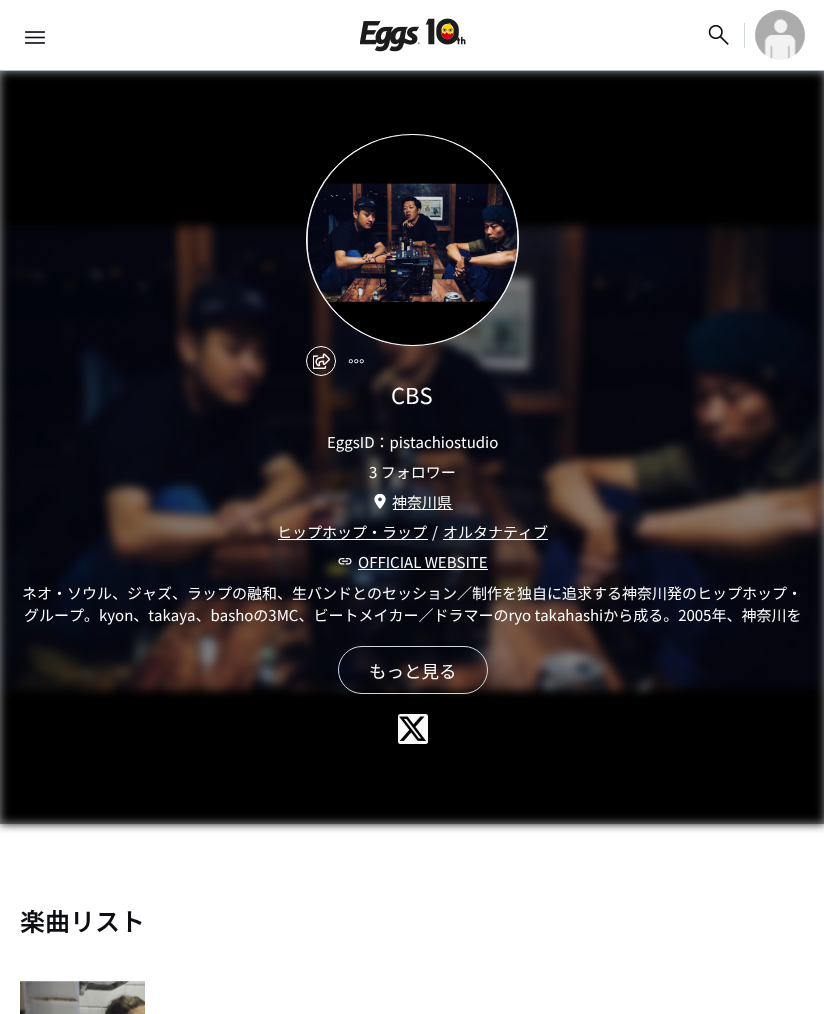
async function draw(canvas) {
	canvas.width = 824;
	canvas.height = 1014;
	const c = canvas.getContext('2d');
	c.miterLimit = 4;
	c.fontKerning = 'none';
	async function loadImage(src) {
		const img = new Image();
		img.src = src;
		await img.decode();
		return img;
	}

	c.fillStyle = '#fff';
	c.fillRect(0, 0, 824, 1014);
	c.fillStyle = '#afb8c1';
	c.fillRect(0, 70, 824, 1);
	c.drawImage(await loadImage('img1.png'), 25, 31, 20, 13);
	c.drawImage(await loadImage('img2.png'), 360, 18, 106, 34);
	c.drawImage(await loadImage('img3.png'), 708, 25, 21, 20);
	c.fillStyle = '#d0d7de';
	c.fillRect(744, 23, 1, 25);
	c.drawImage(await loadImage('img4.png'), 755, 10, 50, 50);
	c.fillStyle = '#999';
	c.fillRect(0, 71, 824, 753);
	c.drawImage(await loadImage('img5.png'), 0, 71, 824, 762);
	c.fillStyle = '#fff';
	c.beginPath();
	c.roundRect(306.5, 134.5, 212, 211, 105.5);
	c.fill();
	c.strokeStyle = '#fff';
	c.stroke();
	c.drawImage(await loadImage('img6.png'), 307, 135, 211, 210);
	c.beginPath();
	c.arc(321, 361, 14.5, 0, 2 * Math.PI);
	c.stroke();
	c.drawImage(await loadImage('img7.png'), 313, 353, 17, 16);
	c.drawImage(await loadImage('img8.png'), 348, 359, 16, 5);
	c.font = '22px Noto Sans JP';
	c.fillText('CBS', 391, 404);
	c.font = '15px Noto Sans JP';
	c.fillText('EggsID：pistachiostudio', 327, 448);
	c.fillText('3 フォロワー', 369, 478);
	c.drawImage(await loadImage('img9.png'), 374, 494, 12, 15);
	c.fillRect(393, 509, 60, 1);
	c.fillText('神奈川県', 392, 508);
	c.fillRect(278, 539, 150, 1);
	c.fillText('ヒップホップ・ラップ', 277, 538);
	c.fillText('/', 432, 538);
	c.fillRect(443, 539, 105, 1);
	c.fillText('オルタナティブ', 443, 538);
	c.drawImage(await loadImage('img10.png'), 338, 558, 14, 7);
	c.fillText('OFFICIAL WEBSITE', 358, 568);
	c.fillRect(358, 569, 130, 1);
	c.fillText('ネオ・ソウル、ジャズ、ラップの融和、生バンドとのセッション／制作を独自に追求する神奈川発のヒップホップ・', 22, 599);
	c.fillText('グループ。kyon、takaya、bashoの3MC、ビートメイカー／ドラマーのryo takahashiから成る。2005年、神奈川を', 24, 621);
	c.beginPath();
	c.roundRect(338.5, 646.5, 149, 47, 23.5);
	c.strokeStyle = '#d0d7de';
	c.stroke();
	c.font = '17.5px Noto Sans JP';
	c.fillText('もっと見る', 369, 678);
	c.fillStyle = '#fafafa';
	c.beginPath();
	c.roundRect(398, 714, 30, 30, 2.5);
	c.fill();
	c.drawImage(await loadImage('img11.png'), 399, 716, 27, 25);
	c.font = '600 25px Noto Sans JP';
	c.fillStyle = '#0d0f14';
	c.fillText('楽曲リスト', 20, 931);
	c.drawImage(await loadImage('img12.png'), 20, 981, 125, 33);
}

draw(document.querySelector('canvas'));
